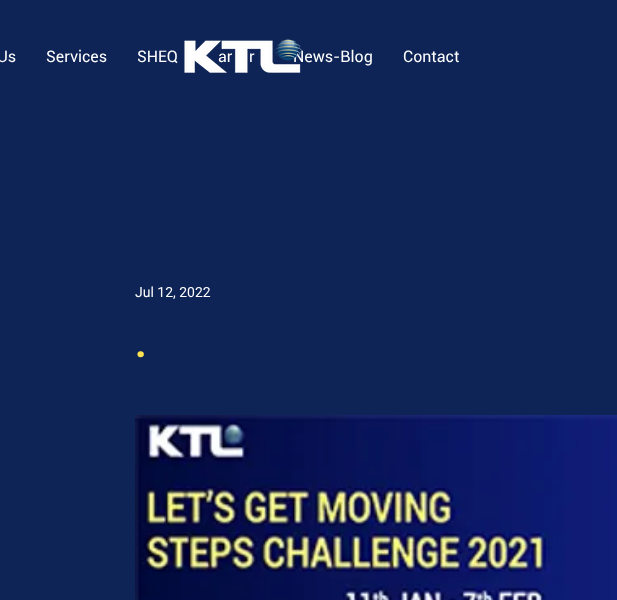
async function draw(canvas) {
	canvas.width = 617;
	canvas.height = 600;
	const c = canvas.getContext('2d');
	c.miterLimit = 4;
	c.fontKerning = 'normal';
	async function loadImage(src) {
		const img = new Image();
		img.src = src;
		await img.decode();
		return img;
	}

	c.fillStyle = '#0e2456';
	c.fillRect(0, 0, 617, 600);
	c.font = '16px "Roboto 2"';
	c.fillStyle = '#fff';
	for (const [text, x, y] of [
		['ar', 218, 62],
		['r', 249, 62],
		['News-Blog', 293, 62],
	]) {
		c.fillText(text, x, y);
	}
	c.drawImage(await loadImage('img1.png'), 184, 39, 118, 34);
	for (const [text, x, y] of [
		['Us', -3, 62],
		['Services', 46, 62],
		['SHEQ', 137, 62],
		['Contact', 403, 62],
	]) {
		c.fillText(text, x, y);
	}
	c.font = '14px Roboto';
	c.fillText('Jul 12, 2022', 135, 297);
	c.font = 'bold 40px Roboto';
	c.fillStyle = '#ffe252';
	c.fillText('.', 135, 357);
	c.drawImage(await loadImage('img2.png'), 135, 415, 482, 185);
}

draw(document.querySelector('canvas'));
